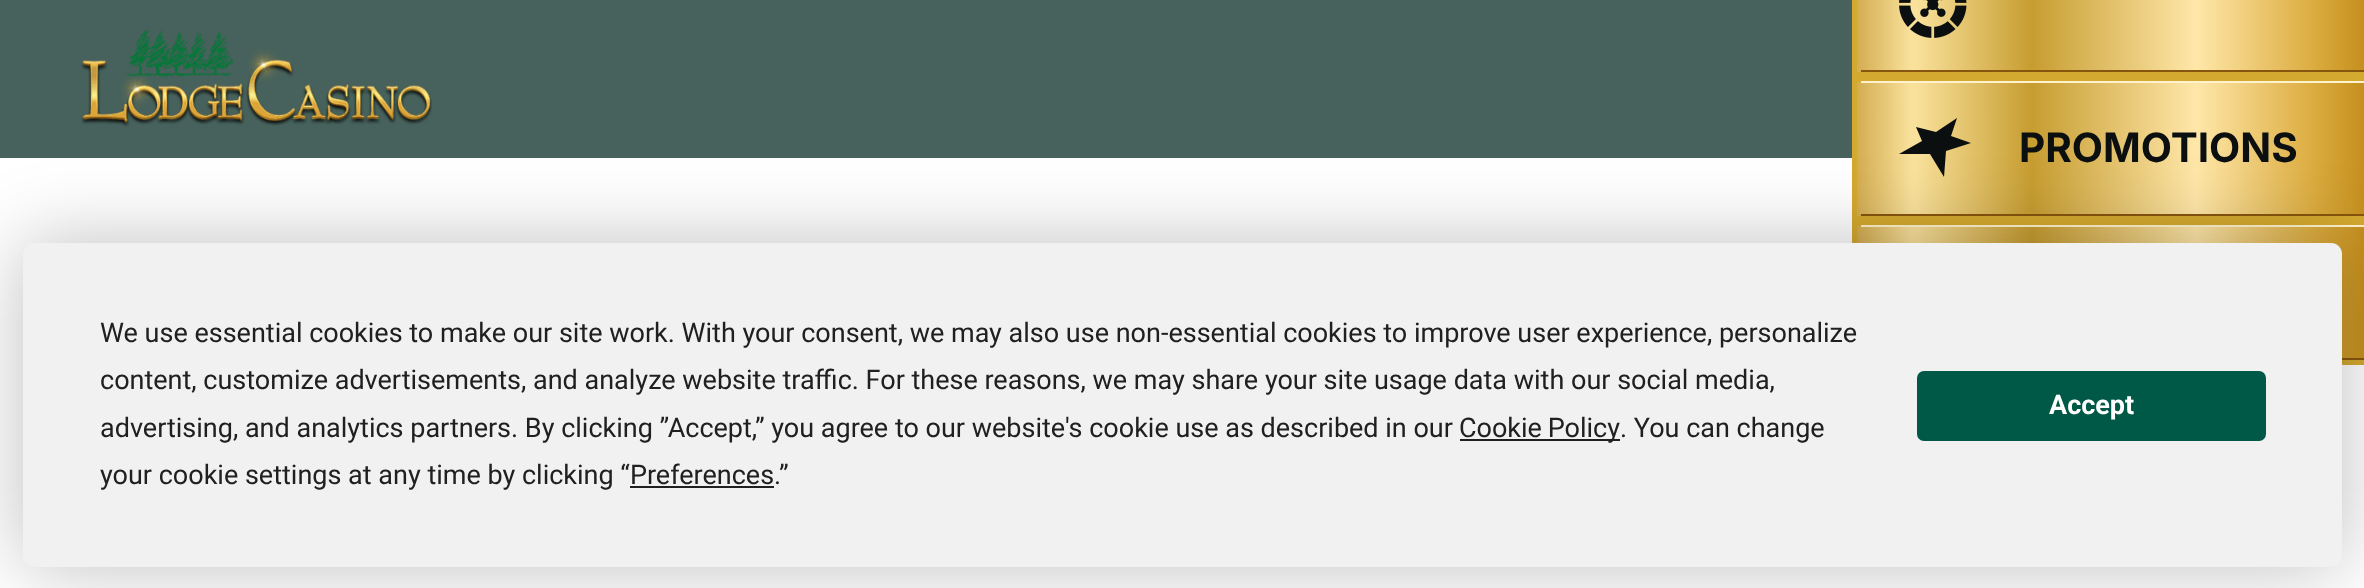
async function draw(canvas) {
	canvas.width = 2364;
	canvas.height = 588;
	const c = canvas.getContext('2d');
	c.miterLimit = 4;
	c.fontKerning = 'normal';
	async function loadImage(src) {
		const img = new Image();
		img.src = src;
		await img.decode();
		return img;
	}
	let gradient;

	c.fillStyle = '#fff';
	c.fillRect(0, 0, 2364, 588);
	c.fillStyle = '#47625c';
	c.fillRect(0, 0, 1852, 158);
	c.drawImage(await loadImage('img1.png'), 81, 29, 351, 98);
	gradient = c.createLinearGradient(1856, 4.5, 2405, 4.5);
	gradient.addColorStop(0, '#d3ac50');
	gradient.addColorStop(0.1, '#f9e19b');
	gradient.addColorStop(0.11, '#f9e19b');
	gradient.addColorStop(0.32, '#c79d31');
	gradient.addColorStop(0.62, '#ffe7a9');
	gradient.addColorStop(0.83, '#dcad41');
	gradient.addColorStop(1, '#b37802');
	c.fillStyle = gradient;
	c.fillRect(1857, 0, 507, 72);
	c.strokeStyle = '#d4a92f';
	c.lineWidth = 5;
	c.strokeRect(1854.5, -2.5, 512, 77);
	c.drawImage(await loadImage('img2.png'), 1899, 0, 68, 38);
	c.fillStyle = '#87560e';
	c.fillRect(1861, 70, 503, 2);
	gradient = c.createLinearGradient(1856, 149, 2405, 148);
	gradient.addColorStop(0, '#d3ac50');
	gradient.addColorStop(0.1, '#f9e19b');
	gradient.addColorStop(0.11, '#f9e19b');
	gradient.addColorStop(0.32, '#c79d31');
	gradient.addColorStop(0.62, '#ffe7a9');
	gradient.addColorStop(0.83, '#dcad41');
	gradient.addColorStop(1, '#b37802');
	c.fillStyle = gradient;
	c.fillRect(1857, 82, 507, 134);
	c.strokeRect(1854.5, 79.5, 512, 139);
	c.fillStyle = '#fff2cc';
	c.fillRect(1861, 81, 503, 2);
	c.fillStyle = '#0b0f10';
	c.beginPath();
	c.moveTo(1936, 132);
	c.lineTo(1916, 127);
	c.lineTo(1922, 141);
	c.lineTo(1899, 154);
	c.lineTo(1930, 154);
	c.lineTo(1944, 177);
	c.lineTo(1946, 151);
	c.lineTo(1971, 143);
	c.lineTo(1951, 136);
	c.lineTo(1957, 118);
	c.closePath();
	c.fill();
	c.font = 'bold 40.5px Inter';
	c.fillText('PROMOTIONS', 2019, 162);
	c.fillStyle = '#87560e';
	c.fillRect(1861, 214, 503, 2);
	gradient = c.createLinearGradient(1856, 293, 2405, 293);
	gradient.addColorStop(0, '#d3ac50');
	gradient.addColorStop(0.1, '#f9e19b');
	gradient.addColorStop(0.11, '#f9e19b');
	gradient.addColorStop(0.32, '#c79d31');
	gradient.addColorStop(0.62, '#ffe7a9');
	gradient.addColorStop(0.83, '#dcad41');
	gradient.addColorStop(1, '#b37802');
	c.fillStyle = gradient;
	c.fillRect(1857, 226, 507, 132);
	c.strokeRect(1854.5, 223.5, 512, 139);
	c.fillStyle = '#fff2cc';
	c.fillRect(1861, 225, 503, 2);
	c.fillStyle = '#87560e';
	c.fillRect(2342, 358, 22, 2);
	c.fillStyle = '#00000040';
	c.filter = 'blur(39.5px)';
	c.beginPath();
	c.roundRect(23, 243, 2319, 324, 11);
	c.fill();
	c.filter = 'none';
	c.fillStyle = '#f1f1f1';
	c.beginPath();
	c.roundRect(23, 243, 2319, 324, 11);
	c.fill();
	c.font = '27px Roboto';
	c.fillStyle = '#202020';
	for (const [text, x, y] of [
		['We use essential cookies to make our site work. With your consent, we may also use non-essential cookies to improve user experience, personalize', 100, 342],
		['content, customize advertisements, and analyze website traffic. For these reasons, we may share your site usage data with our social media,', 100, 389],
		['advertising, and analytics partners. By clicking ”Accept,” you agree to our website\'s cookie use as described in our', 100, 437],
	]) {
		c.fillText(text, x, y);
	}
	c.fillRect(1460, 439, 160, 2);
	c.wordSpacing = '-1px';
	c.fillText('Cookie Policy', 1459, 437);
	c.wordSpacing = '0px';
	c.fillText('. You can change', 1620, 437);
	c.fillText('your cookie settings at any time by clicking “Preferences.”', 100, 484);
	c.fillRect(630, 486, 144, 2);
	c.fillStyle = '#005847';
	c.beginPath();
	c.roundRect(1918, 372, 347, 68, 6);
	c.fill();
	c.strokeStyle = '#005847';
	c.lineWidth = 2;
	c.stroke();
	c.font = 'bold 27px Roboto';
	c.fillStyle = '#fff';
	c.fillText('Accept', 2049, 414);
}

draw(document.querySelector('canvas'));
